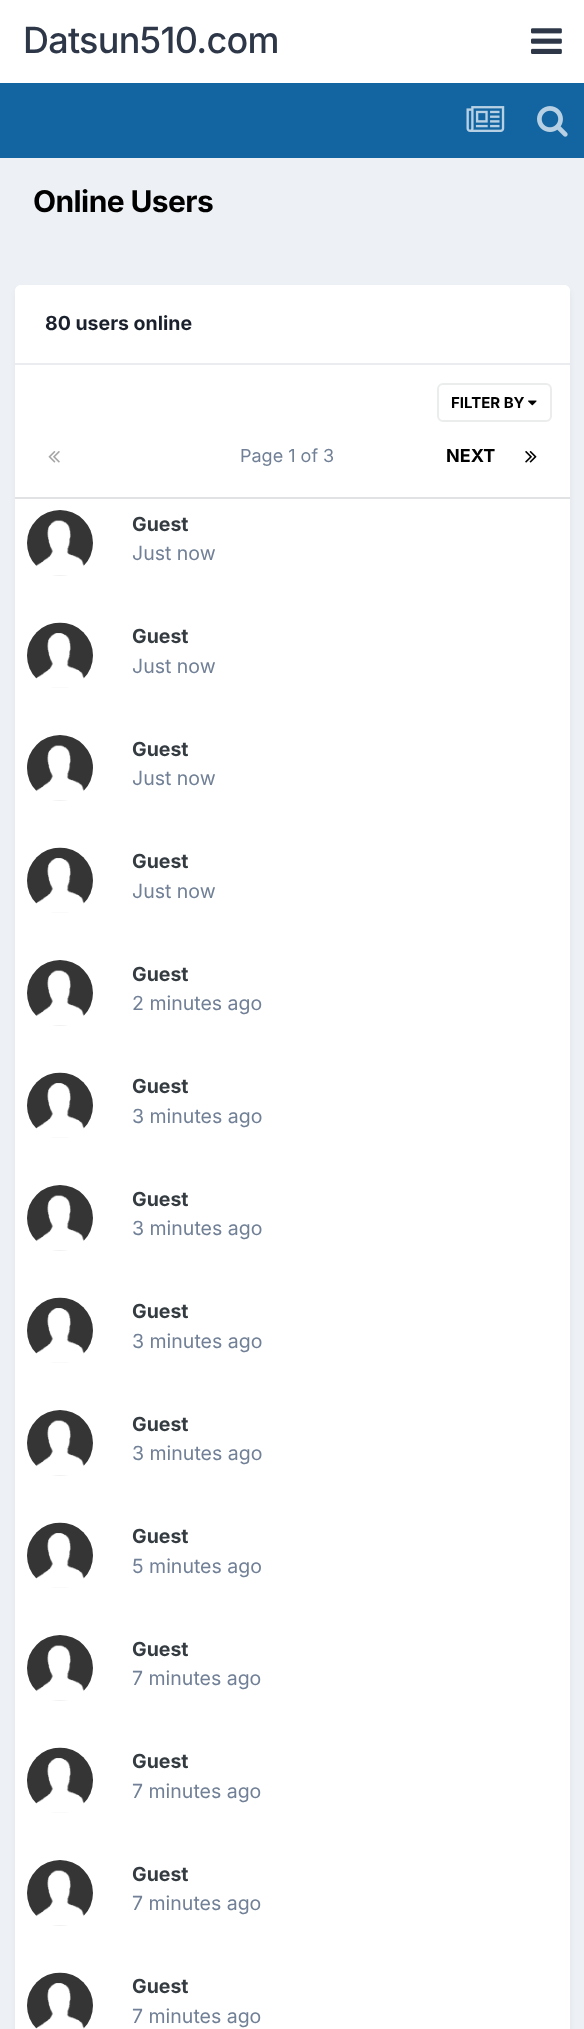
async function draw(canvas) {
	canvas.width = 584;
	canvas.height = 2029;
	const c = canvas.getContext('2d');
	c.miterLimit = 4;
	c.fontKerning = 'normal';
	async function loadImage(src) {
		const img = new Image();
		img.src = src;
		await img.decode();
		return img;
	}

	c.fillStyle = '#edf0f4';
	c.fillRect(0, 0, 584, 2029);
	c.fillStyle = '#fff';
	c.fillRect(0, 0, 584, 83);
	c.letterSpacing = '-0.75px';
	c.font = '500 36px Inter';
	c.fillStyle = '#2d3748';
	c.fillText('Datsun510.com', 23, 53);
	c.drawImage(await loadImage('img1.png'), 531, 28, 31, 26);
	c.fillStyle = '#1265a1';
	c.fillRect(0, 83, 584, 75);
	c.drawImage(await loadImage('img2.png'), 466, 106, 39, 26);
	c.drawImage(await loadImage('img3.png'), 537, 106, 31, 31);
	c.letterSpacing = '-0.6px';
	c.font = 'bold 30px Inter';
	c.fillStyle = '#000';
	c.fillText('Online Users', 33, 212);
	c.fillStyle = '#2d37481a';
	c.filter = 'blur(3px)';
	c.beginPath();
	c.roundRect(17, 290, 552, 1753, 5);
	c.fill();
	c.filter = 'none';
	c.fillStyle = '#fff';
	c.beginPath();
	c.roundRect(15, 285, 555, 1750, 6);
	c.fill();
	c.beginPath();
	c.roundRect(15, 285, 555, 80, [6, 6, 0, 0]);
	c.fill();
	c.fillStyle = '#eaecef';
	c.fillRect(15, 363, 555, 2);
	c.letterSpacing = '0px';
	c.font = 'bold 19.5px Inter';
	c.fillStyle = '#1a202c';
	c.fillText('80 users online', 45, 330);
	c.fillStyle = '#e1e2e3';
	c.fillRect(15, 497, 555, 2);
	c.drawImage(await loadImage('img4.png'), 528, 400, 9, 6);
	c.beginPath();
	c.roundRect(438, 384, 113, 37, 5);
	c.strokeStyle = '#ebecec';
	c.lineWidth = 2;
	c.stroke();
	c.font = 'bold 15px Inter';
	c.fillStyle = '#000';
	c.fillText('FILTER BY', 451, 408);
	c.drawImage(await loadImage('img5.png'), 48, 451, 12, 12);
	c.font = '18px Inter';
	c.fillStyle = '#718096';
	c.fillText('Page 1 of 3', 240, 462);
	c.font = 'bold 18px Inter';
	c.fillStyle = '#000';
	c.fillText('NEXT', 446, 462);
	c.drawImage(await loadImage('img6.png'), 525, 451, 12, 12);
	c.drawImage(await loadImage('img7.png'), 27, 510, 66, 66);
	c.font = 'bold 19.5px Inter';
	c.fillStyle = '#353c41';
	c.fillText('Guest', 132, 531);
	c.font = '19.5px Inter';
	c.fillStyle = '#718096';
	c.fillText('Just now', 132, 560);
	c.drawImage(await loadImage('img8.png'), 27, 622, 66, 66);
	c.font = 'bold 19.5px Inter';
	c.fillStyle = '#353c41';
	c.fillText('Guest', 132, 643);
	c.font = '19.5px Inter';
	c.fillStyle = '#718096';
	c.fillText('Just now', 132, 673);
	c.drawImage(await loadImage('img9.png'), 27, 735, 66, 66);
	c.font = 'bold 19.5px Inter';
	c.fillStyle = '#353c41';
	c.fillText('Guest', 132, 756);
	c.font = '19.5px Inter';
	c.fillStyle = '#718096';
	c.fillText('Just now', 132, 785);
	c.drawImage(await loadImage('img8.png'), 27, 847, 66, 66);
	c.font = 'bold 19.5px Inter';
	c.fillStyle = '#353c41';
	c.fillText('Guest', 132, 868);
	c.font = '19.5px Inter';
	c.fillStyle = '#718096';
	c.fillText('Just now', 132, 898);
	c.drawImage(await loadImage('img10.png'), 27, 960, 66, 66);
	c.font = 'bold 19.5px Inter';
	c.fillStyle = '#353c41';
	c.fillText('Guest', 132, 981);
	c.font = '19.5px Inter';
	c.fillStyle = '#718096';
	c.fillText('2 minutes ago', 132, 1010);
	c.drawImage(await loadImage('img8.png'), 27, 1072, 66, 66);
	c.font = 'bold 19.5px Inter';
	c.fillStyle = '#353c41';
	c.fillText('Guest', 132, 1093);
	c.font = '19.5px Inter';
	c.fillStyle = '#718096';
	c.fillText('3 minutes ago', 132, 1123);
	c.drawImage(await loadImage('img7.png'), 27, 1185, 66, 66);
	c.font = 'bold 19.5px Inter';
	c.fillStyle = '#353c41';
	c.fillText('Guest', 132, 1206);
	c.font = '19.5px Inter';
	c.fillStyle = '#718096';
	c.fillText('3 minutes ago', 132, 1235);
	c.drawImage(await loadImage('img8.png'), 27, 1297, 66, 66);
	c.font = 'bold 19.5px Inter';
	c.fillStyle = '#353c41';
	c.fillText('Guest', 132, 1318);
	c.font = '19.5px Inter';
	c.fillStyle = '#718096';
	c.fillText('3 minutes ago', 132, 1348);
	c.drawImage(await loadImage('img7.png'), 27, 1410, 66, 66);
	c.font = 'bold 19.5px Inter';
	c.fillStyle = '#353c41';
	c.fillText('Guest', 132, 1431);
	c.font = '19.5px Inter';
	c.fillStyle = '#718096';
	c.fillText('3 minutes ago', 132, 1460);
	c.drawImage(await loadImage('img11.png'), 27, 1522, 66, 66);
	c.font = 'bold 19.5px Inter';
	c.fillStyle = '#353c41';
	c.fillText('Guest', 132, 1543);
	c.font = '19.5px Inter';
	c.fillStyle = '#718096';
	c.fillText('5 minutes ago', 132, 1573);
	c.drawImage(await loadImage('img7.png'), 27, 1635, 66, 66);
	c.font = 'bold 19.5px Inter';
	c.fillStyle = '#353c41';
	c.fillText('Guest', 132, 1656);
	c.font = '19.5px Inter';
	c.fillStyle = '#718096';
	c.fillText('7 minutes ago', 132, 1685);
	c.drawImage(await loadImage('img12.png'), 27, 1747, 66, 66);
	c.font = 'bold 19.5px Inter';
	c.fillStyle = '#353c41';
	c.fillText('Guest', 132, 1768);
	c.font = '19.5px Inter';
	c.fillStyle = '#718096';
	c.fillText('7 minutes ago', 132, 1798);
	c.drawImage(await loadImage('img7.png'), 27, 1860, 66, 66);
	c.font = 'bold 19.5px Inter';
	c.fillStyle = '#353c41';
	c.fillText('Guest', 132, 1881);
	c.font = '19.5px Inter';
	c.fillStyle = '#718096';
	c.fillText('7 minutes ago', 132, 1910);
	c.drawImage(await loadImage('img13.png'), 27, 1972, 66, 57);
	c.font = 'bold 19.5px Inter';
	c.fillStyle = '#353c41';
	c.fillText('Guest', 132, 1993);
	c.font = '19.5px Inter';
	c.fillStyle = '#718096';
	c.fillText('7 minutes ago', 132, 2023);
}

draw(document.querySelector('canvas'));
